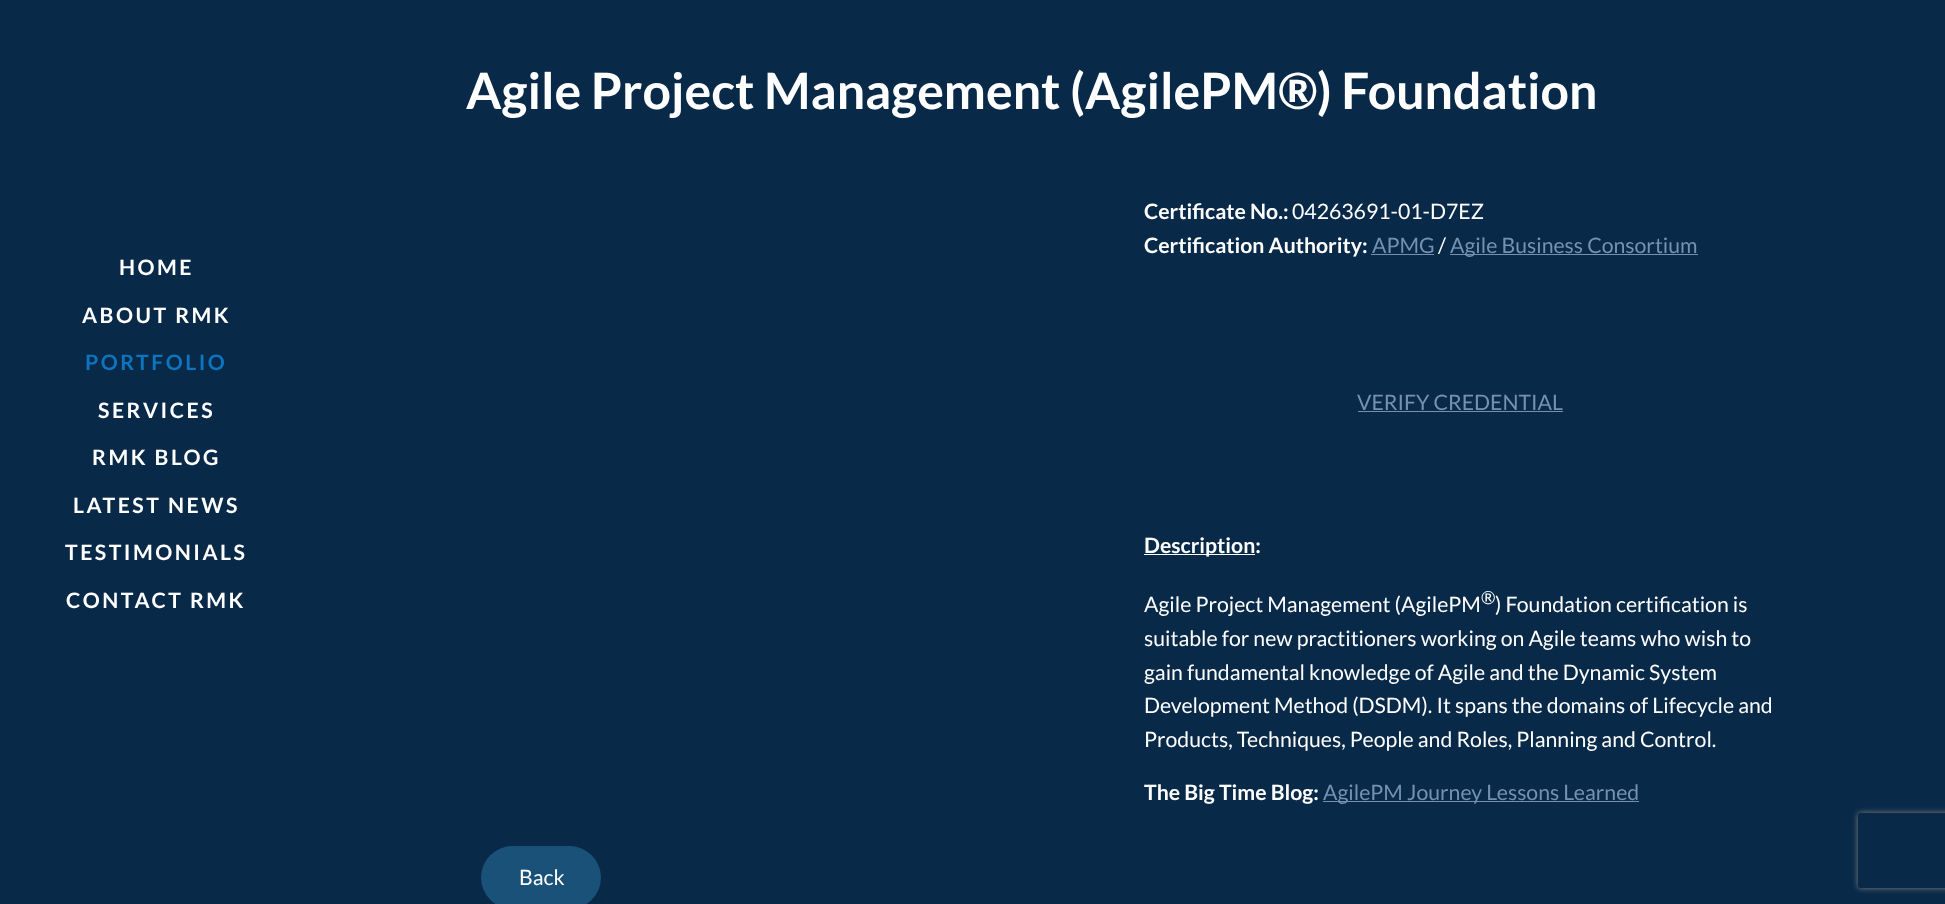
async function draw(canvas) {
	canvas.width = 1945;
	canvas.height = 904;
	const c = canvas.getContext('2d');
	c.miterLimit = 4;
	c.fontKerning = 'normal';

	c.fillStyle = '#082948';
	c.fillRect(0, 0, 1945, 904);
	c.letterSpacing = '2.5px';
	c.font = 'bold 21.25px Lato';
	c.fillStyle = '#fefefe';
	c.fillText('HOME', 119, 275);
	c.fillText('ABOUT RMK', 82, 323);
	c.fillStyle = '#0d74be';
	c.fillText('PORTFOLIO', 85, 370);
	c.fillStyle = '#fefefe';
	for (const [text, x, y] of [
		['SERVICES', 98, 418],
		['RMK BLOG', 92, 465],
		['LATEST NEWS', 73, 513],
		['TESTIMONIALS', 65, 560],
		['CONTACT RMK', 66, 608],
	]) {
		c.fillText(text, x, y);
	}
	c.letterSpacing = '0px';
	c.font = 'bold 50px Lato';
	c.fillText('Agile Project Management (AgilePM®) Foundation', 466, 109);
	c.font = 'bold 21.25px Lato';
	c.fillText('Certificate No.:', 1144, 219);
	c.font = '21.25px Lato';
	c.fillText('04263691-01-D7EZ', 1292, 219);
	c.font = 'bold 21.25px Lato';
	c.fillText('Certification Authority:', 1144, 253);
	c.font = '21.25px Lato';
	c.fillStyle = '#7492b0';
	c.fillText('APMG', 1372, 253);
	c.fillRect(1371, 254, 63, 1);
	c.fillStyle = '#fefefe';
	c.fillText('/', 1438, 253);
	c.fillStyle = '#7492b0';
	c.fillRect(1450, 254, 248, 1);
	c.fillText('Agile Business Consortium', 1450, 253);
	c.fillText('VERIFY CREDENTIAL', 1357, 410);
	c.fillRect(1358, 411, 205, 1);
	c.fillStyle = '#fefefe';
	c.fillRect(1144, 554, 111, 1);
	c.font = 'bold 21.25px Lato';
	c.fillText('Description:', 1144, 553);
	c.font = '21.25px Lato';
	c.fillText('Agile Project Management (AgilePM', 1144, 612);
	c.font = '18px Lato';
	c.fillText('®', 1481, 604);
	c.font = '21.25px Lato';
	for (const [text, x, y] of [
		[') Foundation certification is', 1495, 612],
		['suitable for new practitioners working on Agile teams who wish to', 1144, 646],
		['gain fundamental knowledge of Agile and the Dynamic System', 1144, 680],
		['Development Method (DSDM). It spans the domains of Lifecycle and', 1144, 713],
		['Products, Techniques, People and Roles, Planning and Control.', 1144, 747],
	]) {
		c.fillText(text, x, y);
	}
	c.font = 'bold 21.25px Lato';
	c.fillText('The Big Time Blog:', 1144, 800);
	c.fillStyle = '#7492b0';
	c.fillRect(1323, 801, 316, 1);
	c.font = '21.25px Lato';
	c.fillText('AgilePM Journey Lessons Learned', 1323, 800);
	c.fillStyle = '#1a5179';
	c.beginPath();
	c.roundRect(481, 846, 120, 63, 31.5);
	c.fill();
	c.fillStyle = '#fefefe';
	c.fillText('Back', 519, 885);
	c.save();
	c.beginPath();
	c.moveTo(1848, 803);
	c.lineTo(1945, 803);
	c.lineTo(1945, 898);
	c.lineTo(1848, 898);
	c.closePath();
	c.moveTo(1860.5, 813);
	c.lineTo(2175.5, 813);
	c.bezierCurveTo(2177, 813, 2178, 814, 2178, 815.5);
	c.lineTo(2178, 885.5);
	c.bezierCurveTo(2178, 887, 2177, 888, 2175.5, 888);
	c.lineTo(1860.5, 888);
	c.bezierCurveTo(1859, 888, 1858, 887, 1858, 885.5);
	c.lineTo(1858, 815.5);
	c.bezierCurveTo(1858, 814, 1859, 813, 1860.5, 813);
	c.closePath();
	c.clip('evenodd');
	c.fillStyle = '#808080';
	c.filter = 'blur(3px)';
	c.beginPath();
	c.roundRect(1858, 813, 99, 75, 2.5);
	c.fill();
	c.filter = 'none';
	c.restore();
}

draw(document.querySelector('canvas'));
